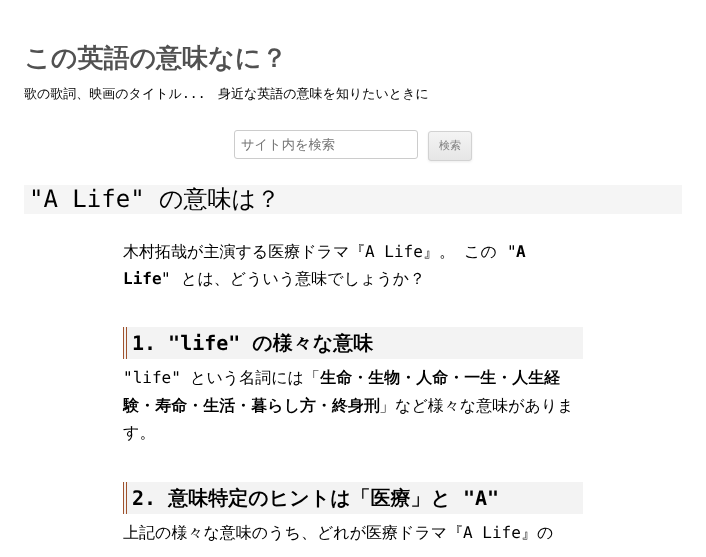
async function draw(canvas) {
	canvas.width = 706;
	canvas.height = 557;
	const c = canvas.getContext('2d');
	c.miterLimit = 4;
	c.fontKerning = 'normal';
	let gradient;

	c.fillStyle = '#fff';
	c.fillRect(0, 0, 706, 557);
	c.font = 'bold 26px WenQuanYi Zen Hei';
	c.fillStyle = '#515151';
	c.fillText('この英語の意味なに？', 24, 67);
	c.font = '500 13px WenQuanYi Zen Hei';
	c.fillStyle = '#000';
	c.fillText('歌の歌詞、映画のタイトル', 24, 98);
	c.font = '13px DejaVu Sans Mono';
	c.fillText('...', 182, 98);
	c.font = '500 13px WenQuanYi Zen Hei';
	c.fillText('身近な英語の意味を知りたいときに', 218, 98);
	c.beginPath();
	c.roundRect(234.5, 130.5, 183, 28, 2.5);
	c.strokeStyle = '#ccc';
	c.stroke();
	c.font = '500 13.25px WenQuanYi Zen Hei';
	c.fillStyle = '#757575';
	c.fillText('サイト内を検索', 241, 149);
	c.fillStyle = '#4040401a';
	c.filter = 'blur(1px)';
	c.beginPath();
	c.roundRect(428, 132, 44, 30, 3);
	c.fill();
	c.filter = 'none';
	c.save();
	c.beginPath();
	c.roundRect(428, 131, 44, 30, 3);
	c.clip();
	gradient = c.createLinearGradient(450, 132, 450, 160);
	gradient.addColorStop(0, '#f4f4f4');
	gradient.addColorStop(1, '#e6e6e6');
	c.fillStyle = gradient;
	c.fillRect(428, 132, 44, 28);
	c.restore();
	c.beginPath();
	c.roundRect(428.5, 131.5, 43, 29, 2.5);
	c.strokeStyle = '#d2d2d2';
	c.stroke();
	c.font = '500 11px WenQuanYi Zen Hei';
	c.fillStyle = '#7c7c7c';
	c.fillText('検索', 439, 149);
	c.fillStyle = '#f5f5f5';
	c.fillRect(24, 185, 658, 29);
	c.font = '24px DejaVu Sans Mono';
	c.fillStyle = '#000';
	c.fillText('"A Life"', 29, 207);
	c.font = '500 24px WenQuanYi Zen Hei';
	c.fillText('の意味は？', 159, 207);
	c.font = '500 16px WenQuanYi Zen Hei';
	c.fillText('木村拓哉が主演する医療ドラマ『', 123, 257);
	c.font = '16px DejaVu Sans Mono';
	c.fillText('A Life', 365, 257);
	c.font = '500 16px WenQuanYi Zen Hei';
	c.fillText('』。', 423, 257);
	c.fillText('この', 464, 257);
	c.font = '16px DejaVu Sans Mono';
	c.fillText('"', 507, 257);
	c.font = 'bold 16px DejaVu Sans Mono';
	c.fillText('A', 516, 257);
	c.fillText('Life', 123, 284);
	c.font = '16px DejaVu Sans Mono';
	c.fillText('"', 161, 284);
	c.font = '500 16px WenQuanYi Zen Hei';
	c.fillText('とは、どういう意味でしょうか？', 181, 284);
	for (const [x, y, w, h, color] of [
		[124, 327, 459, 32, '#f3f3f3'],
		[123, 327, 1, 32, '#a0522d'],
		[126, 327, 1, 32, '#a0522d'],
	]) {
		c.fillStyle = color;
		c.fillRect(x, y, w, h);
	}
	c.font = 'bold 20px DejaVu Sans Mono';
	c.fillStyle = '#000';
	c.fillText('1. "life"', 132, 350);
	c.font = 'bold 20px WenQuanYi Zen Hei';
	c.fillText('の様々な意味', 252, 350);
	c.font = '16px DejaVu Sans Mono';
	c.fillText('"life"', 123, 383);
	c.font = '500 16px WenQuanYi Zen Hei';
	c.fillText('という名詞には「', 190, 383);
	c.font = 'bold 16px WenQuanYi Zen Hei';
	c.fillText('生命・生物・人命・一生・人生経', 320, 383);
	c.fillText('験・寿命・生活・暮らし方・終身刑', 123, 411);
	c.font = '500 16px WenQuanYi Zen Hei';
	c.fillText('」など様々な意味がありま', 379, 411);
	c.fillText('す。', 123, 438);
	for (const [x, y, w, h, color] of [
		[124, 482, 459, 32, '#f3f3f3'],
		[123, 482, 1, 32, '#a0522d'],
		[126, 482, 1, 32, '#a0522d'],
	]) {
		c.fillStyle = color;
		c.fillRect(x, y, w, h);
	}
	c.font = 'bold 20px DejaVu Sans Mono';
	c.fillStyle = '#000';
	c.fillText('2.', 132, 505);
	c.font = 'bold 20px WenQuanYi Zen Hei';
	c.fillText('意味特定のヒントは「医療」と', 168, 505);
	c.font = 'bold 20px DejaVu Sans Mono';
	c.fillText('"A"', 463, 505);
	c.font = '500 16px WenQuanYi Zen Hei';
	c.fillText('上記の様々な意味のうち、どれが医療ドラマ『', 123, 538);
	c.font = '16px DejaVu Sans Mono';
	c.fillText('A Life', 463, 538);
	c.font = '500 16px WenQuanYi Zen Hei';
	c.fillText('』の', 521, 538);
}

draw(document.querySelector('canvas'));
